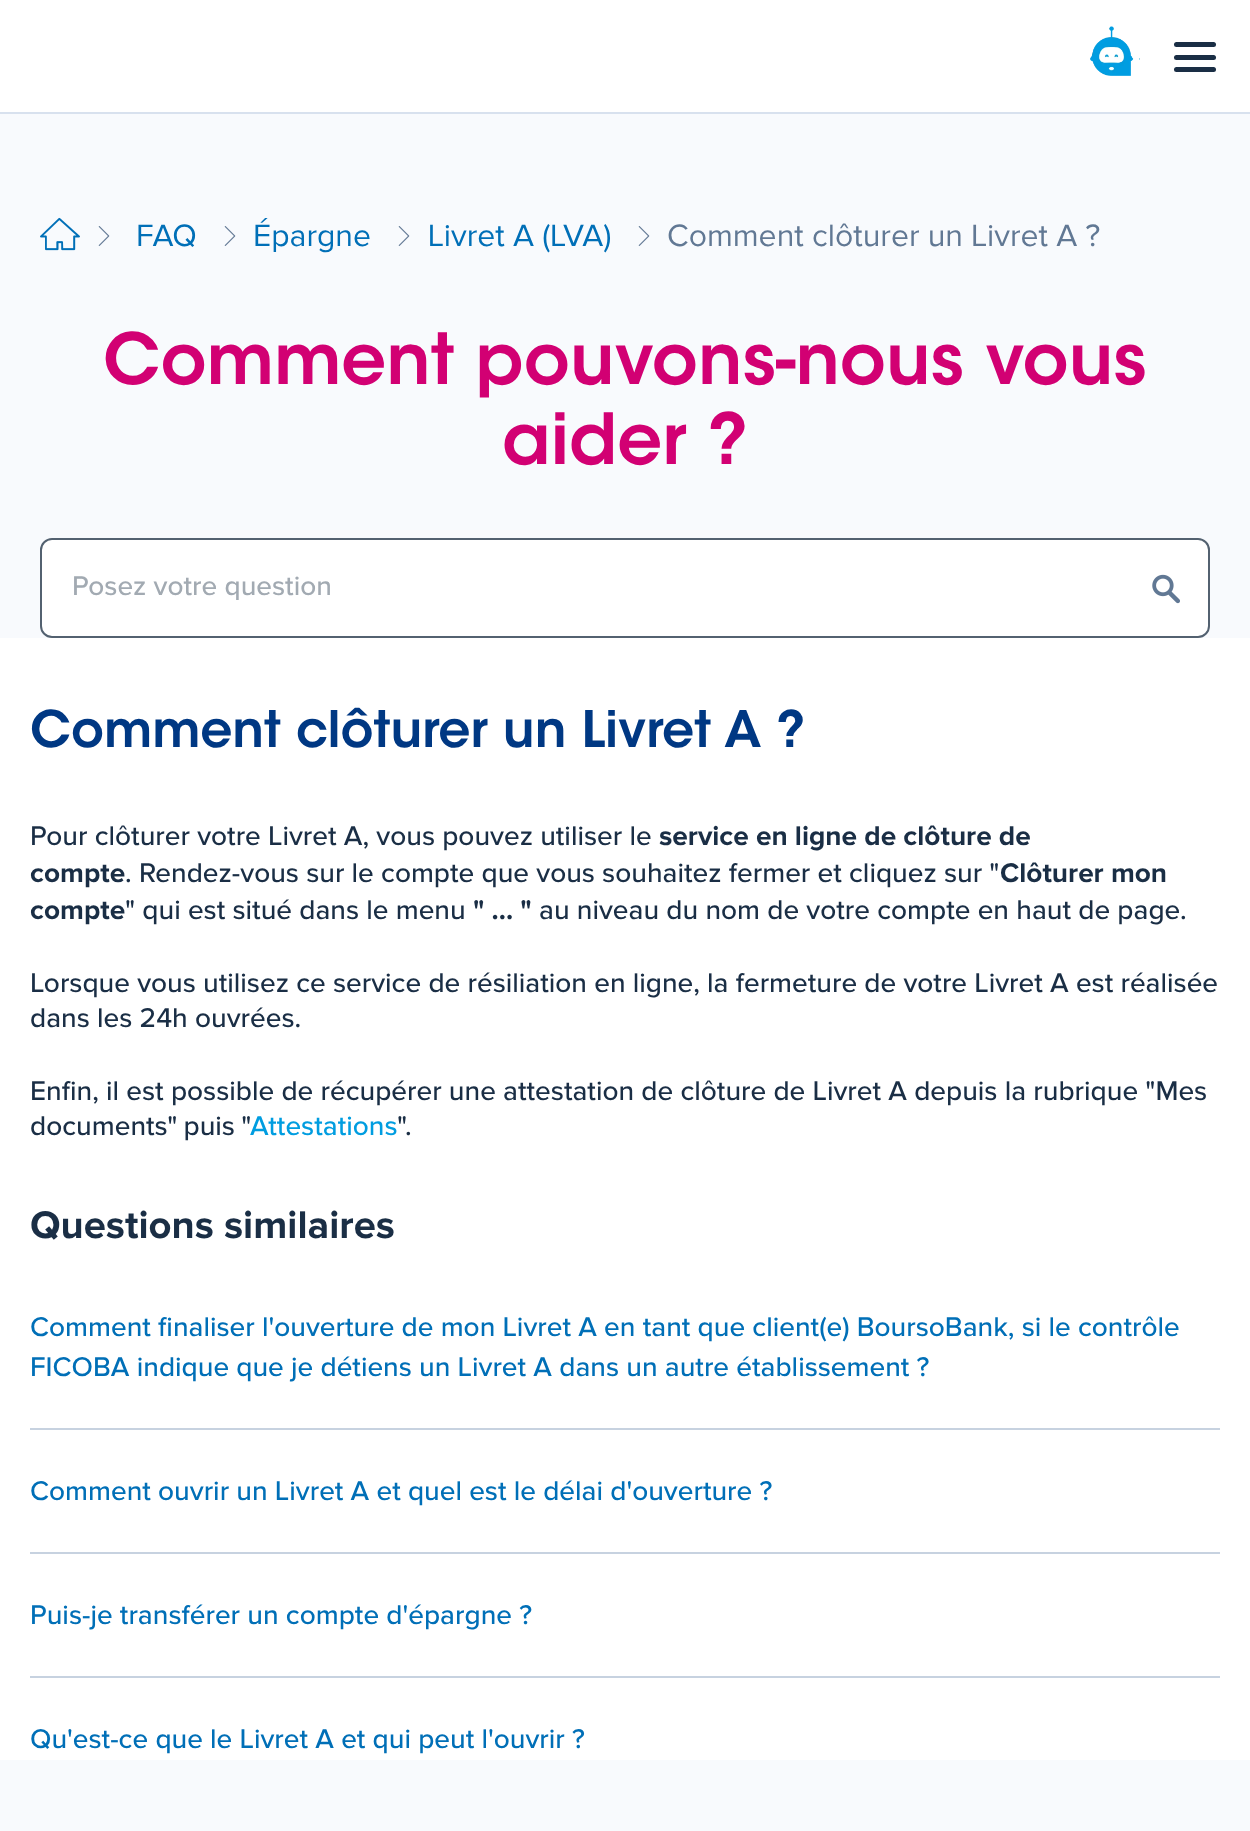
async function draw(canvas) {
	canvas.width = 1250;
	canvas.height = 1831;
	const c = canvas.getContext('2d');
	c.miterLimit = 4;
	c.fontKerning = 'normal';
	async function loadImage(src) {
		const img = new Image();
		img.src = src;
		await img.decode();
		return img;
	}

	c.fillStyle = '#fff';
	c.fillRect(0, 0, 1250, 1831);
	c.fillStyle = '#d8e1ee';
	c.fillRect(0, 112, 1250, 2);
	c.drawImage(await loadImage('img1.png'), 1090, 26, 50, 50);
	c.fillStyle = '#1a2e45';
	c.beginPath();
	c.roundRect(1174, 42, 42, 5, 2.5);
	c.fill();
	c.beginPath();
	c.roundRect(1174, 55, 42, 5, 2.5);
	c.fill();
	c.beginPath();
	c.roundRect(1174, 67, 42, 5, 2.5);
	c.fill();
	c.fillStyle = '#f8fafd';
	c.fillRect(0, 114, 1250, 524);
	c.drawImage(await loadImage('img2.png'), 40, 217, 40, 34);
	c.drawImage(await loadImage('img3.png'), 98, 226, 12, 20);
	c.font = '32px Proxima Nova';
	c.fillStyle = '#006fb7';
	c.fillText('FAQ', 136, 246);
	c.drawImage(await loadImage('img3.png'), 224, 226, 12, 20);
	c.fillText('Épargne', 253, 246);
	c.drawImage(await loadImage('img3.png'), 398, 226, 12, 20);
	c.fillText('Livret A (LVA)', 428, 246);
	c.drawImage(await loadImage('img3.png'), 638, 226, 12, 20);
	c.fillStyle = '#617894';
	c.fillText('Comment clôturer un Livret A ?', 667, 246);
	c.font = '600 70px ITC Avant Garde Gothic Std';
	c.fillStyle = '#d20073';
	c.fillText('Comment pouvons-nous vous', 103, 384);
	c.fillText('aider ?', 502, 464);
	c.fillStyle = '#fff';
	c.beginPath();
	c.roundRect(41, 539, 1168, 98, 11);
	c.fill();
	c.strokeStyle = '#536170';
	c.lineWidth = 2;
	c.stroke();
	c.save();
	c.beginPath();
	c.rect(72, 572, 1048, 28);
	c.clip();
	c.font = '500 28px Proxima Nova';
	c.fillStyle = '#a2aab2';
	c.fillText('Posez votre question', 72, 595);
	c.restore();
	c.drawImage(await loadImage('img4.png'), 1152, 574, 28, 30);
	c.font = '600 50px ITC Avant Garde Gothic Std';
	c.fillStyle = '#003883';
	c.fillText('Comment clôturer un Livret A ?', 30, 747);
	c.font = '500 28px Proxima Nova';
	c.fillStyle = '#1a2e45';
	c.fillText('Pour clôturer votre Livret A, vous pouvez utiliser le', 30, 845);
	c.font = 'bold 28px Proxima Nova';
	c.fillText('service en ligne de clôture de', 659, 845);
	c.fillText('compte', 30, 882);
	c.font = '500 28px Proxima Nova';
	c.fillText('. Rendez-vous sur le compte que vous souhaitez fermer et cliquez sur "', 125, 882);
	c.font = 'bold 28px Proxima Nova';
	c.fillText('Clôturer mon', 1000, 882);
	c.fillText('compte', 30, 919);
	c.font = '500 28px Proxima Nova';
	c.fillText('" qui est situé dans le menu', 125, 919);
	c.font = 'bold 28px Proxima Nova';
	c.fillText('" ... "', 473, 919);
	c.font = '500 28px Proxima Nova';
	for (const [text, x, y] of [
		['au niveau du nom de votre compte en haut de page.', 539, 919],
		['Lorsque vous utilisez ce service de résiliation en ligne, la fermeture de votre Livret A est réalisée', 30, 992],
		['dans les 24h ouvrées.', 30, 1027],
		['Enfin, il est possible de récupérer une attestation de clôture de Livret A depuis la rubrique "Mes', 30, 1100],
	]) {
		c.fillText(text, x, y);
	}
	c.wordSpacing = '-1px';
	c.fillText('documents" puis "', 30, 1135);
	c.wordSpacing = '0px';
	c.fillStyle = '#009de0';
	c.fillText('Attestations', 250, 1135);
	c.fillStyle = '#1a2e45';
	c.fillText('".', 397, 1135);
	c.font = 'bold 40px Proxima Nova';
	c.fillText('Questions similaires', 30, 1238);
	c.font = '500 28px Proxima Nova';
	c.fillStyle = '#006fb7';
	c.fillText('Comment finaliser l\'ouverture de mon Livret A en tant que client(e) BoursoBank, si le contrôle', 30, 1336);
	c.fillText('FICOBA indique que je détiens un Livret A dans un autre établissement ?', 30, 1376);
	c.fillStyle = '#c7d2e0';
	c.fillRect(30, 1428, 1190, 2);
	c.fillStyle = '#006fb7';
	c.fillText('Comment ouvrir un Livret A et quel est le délai d\'ouverture ?', 30, 1500);
	c.fillStyle = '#c7d2e0';
	c.fillRect(30, 1552, 1190, 2);
	c.fillStyle = '#006fb7';
	c.fillText('Puis-je transférer un compte d\'épargne ?', 30, 1624);
	c.fillStyle = '#c7d2e0';
	c.fillRect(30, 1676, 1190, 2);
	c.fillStyle = '#006fb7';
	c.fillText('Qu\'est-ce que le Livret A et qui peut l\'ouvrir ?', 30, 1748);
	c.fillStyle = '#f8fafd';
	c.fillRect(0, 1760, 1250, 71);
}

draw(document.querySelector('canvas'));
